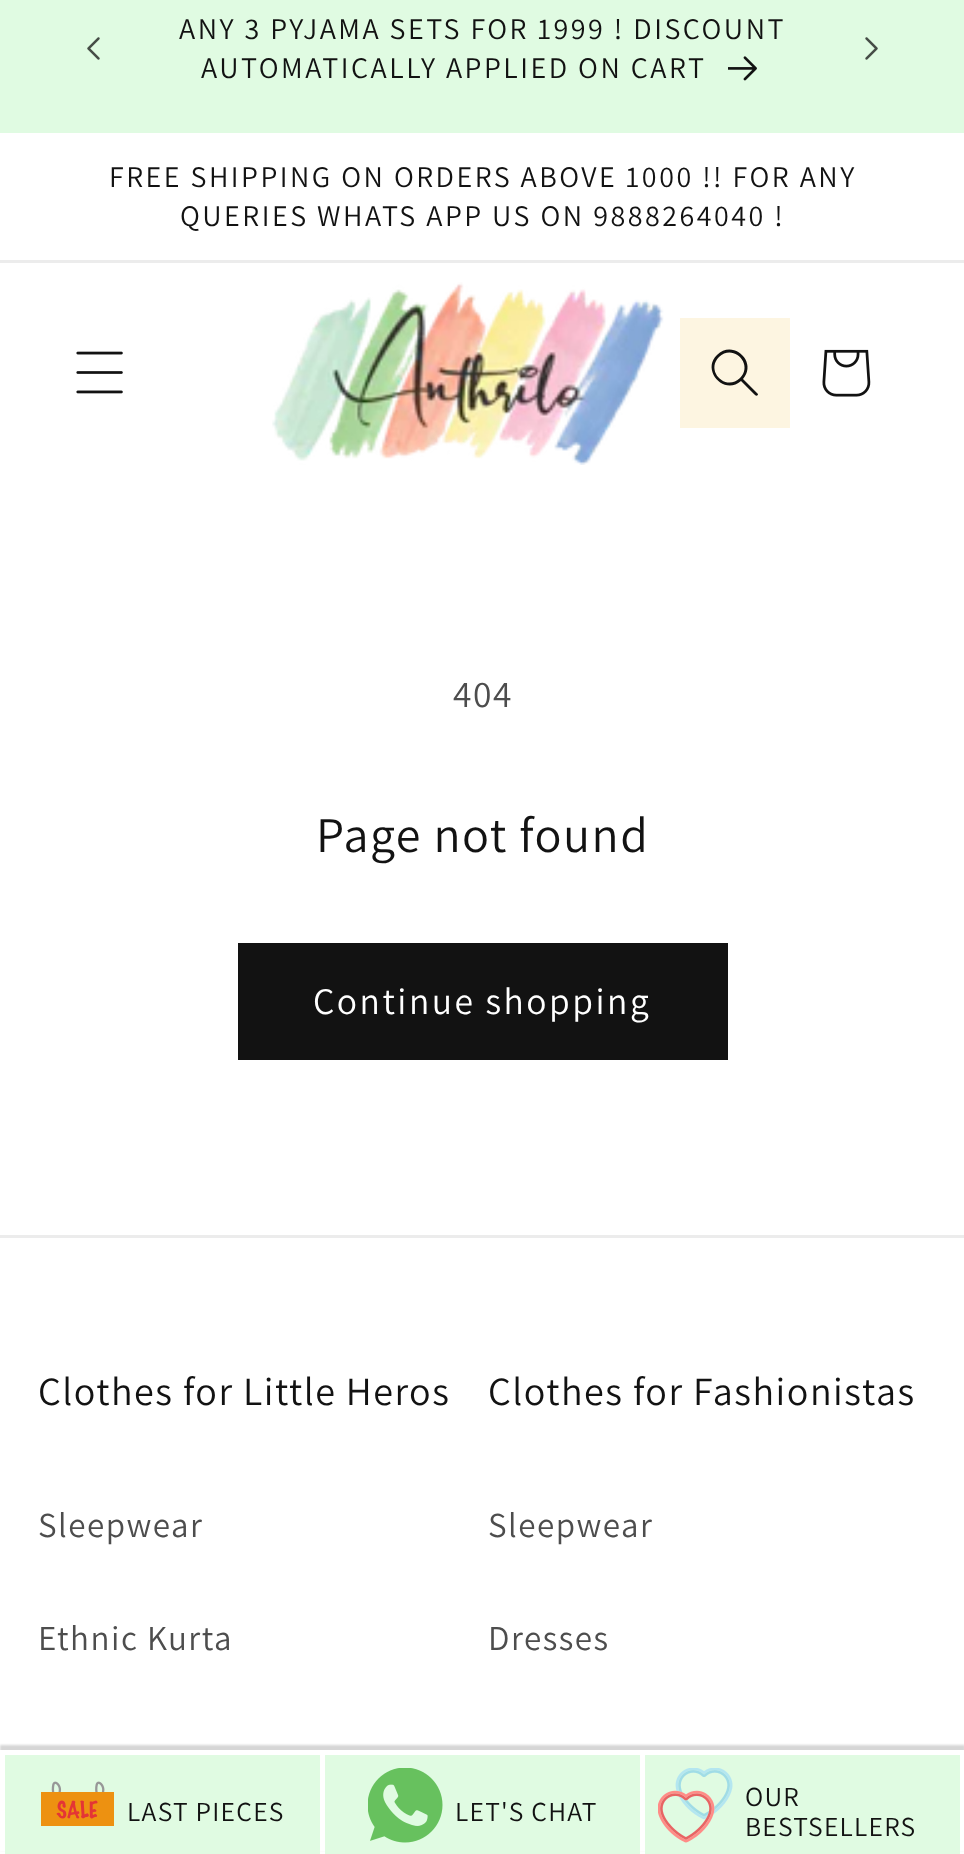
async function draw(canvas) {
	canvas.width = 964;
	canvas.height = 1854;
	const c = canvas.getContext('2d');
	c.miterLimit = 4;
	c.fontKerning = 'normal';
	async function loadImage(src) {
		const img = new Image();
		img.src = src;
		await img.decode();
		return img;
	}

	c.fillStyle = '#fff';
	c.fillRect(0, 0, 964, 1854);
	c.fillStyle = '#e0fbe2';
	c.fillRect(0, 0, 964, 133);
	c.drawImage(await loadImage('img1.png'), 87, 37, 13, 23);
	c.letterSpacing = '2.5px';
	c.font = '30px Assistant';
	c.fillStyle = '#121212';
	c.fillText('ANY 3 PYJAMA SETS FOR 1999 ! DISCOUNT', 179, 39);
	c.fillText('AUTOMATICALLY APPLIED ON CART', 201, 78);
	c.drawImage(await loadImage('img2.png'), 728, 56, 29, 25);
	c.drawImage(await loadImage('img3.png'), 865, 37, 13, 23);
	c.fillStyle = '#ececec';
	c.fillRect(0, 260, 964, 3);
	c.fillStyle = '#121212';
	c.fillText('FREE SHIPPING ON ORDERS ABOVE 1000 !! FOR ANY', 109, 187);
	c.fillText('QUERIES WHATS APP US ON 9888264040 !', 180, 226);
	c.drawImage(await loadImage('img4.png'), 76, 351, 47, 43);
	c.drawImage(await loadImage('img5.png'), 272, 282, 392, 183);
	c.fillStyle = '#fdf5e1';
	c.fillRect(680, 318, 110, 110);
	c.fillStyle = '#121212';
	c.beginPath();
	c.moveTo(740, 378);
	c.bezierCurveTo(726, 392, 705, 371, 719, 357);
	c.bezierCurveTo(733, 343, 754, 364, 740, 378);
	c.moveTo(741, 381);
	c.bezierCurveTo(724, 396, 701, 370, 717, 355);
	c.bezierCurveTo(733, 339, 758, 362, 743, 379);
	c.lineTo(758, 394);
	c.bezierCurveTo(758, 396, 756, 396, 755, 395);
	c.closePath();
	c.fill('evenodd');
	c.drawImage(await loadImage('img6.png'), 822, 349, 49, 48);
	c.letterSpacing = '1.5px';
	c.font = '37.5px Assistant';
	c.fillStyle = '#4d4d4d';
	c.fillText('404', 453, 707);
	c.font = '50px Assistant';
	c.fillStyle = '#121212';
	c.fillText('Page not found', 316, 852);
	c.fillRect(238, 943, 490, 117);
	c.letterSpacing = '2.5px';
	c.font = '37.5px Assistant';
	c.fillStyle = '#fff';
	c.fillText('Continue shopping', 313, 1014);
	c.fillStyle = '#ececec';
	c.fillRect(0, 1235, 964, 3);
	c.letterSpacing = '1.5px';
	c.font = '40px Assistant';
	c.fillStyle = '#121212';
	c.fillText('Clothes for Little Heros', 38, 1405);
	c.font = '35px Assistant';
	c.fillStyle = '#4d4d4d';
	c.fillText('Sleepwear', 38, 1537);
	c.fillText('Ethnic Kurta', 38, 1650);
	c.font = '40px Assistant';
	c.fillStyle = '#121212';
	c.fillText('Clothes for Fashionistas', 488, 1405);
	c.font = '35px Assistant';
	c.fillStyle = '#4d4d4d';
	c.fillText('Sleepwear', 488, 1537);
	c.fillText('Dresses', 488, 1650);
	c.fillStyle = '#00000029';
	c.filter = 'blur(1px)';
	c.beginPath();
	c.rect(0, 1745, 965, 105);
	c.fill();
	c.filter = 'none';
	c.fillStyle = '#fff';
	c.fillRect(0, 1750, 964, 101);
	c.fillStyle = '#e0fbe2';
	c.fillRect(5, 1755, 315, 99);
	c.drawImage(await loadImage('img7.png'), 41, 1781, 73, 45);
	c.letterSpacing = '1.25px';
	c.font = '27.5px Assistant';
	c.fillStyle = '#121212';
	c.fillText('LAST PIECES', 127, 1821);
	c.fillStyle = '#e0fbe2';
	c.fillRect(325, 1755, 315, 99);
	c.drawImage(await loadImage('img8.png'), 368, 1768, 75, 75);
	c.fillStyle = '#121212';
	c.fillText('LET\'S CHAT', 455, 1821);
	c.fillStyle = '#e0fbe2';
	c.fillRect(645, 1755, 315, 99);
	c.drawImage(await loadImage('img9.png'), 658, 1768, 75, 75);
	c.fillStyle = '#121212';
	c.fillText('OUR', 745, 1806);
	c.fillText('BESTSELLERS', 745, 1836);
}

draw(document.querySelector('canvas'));
